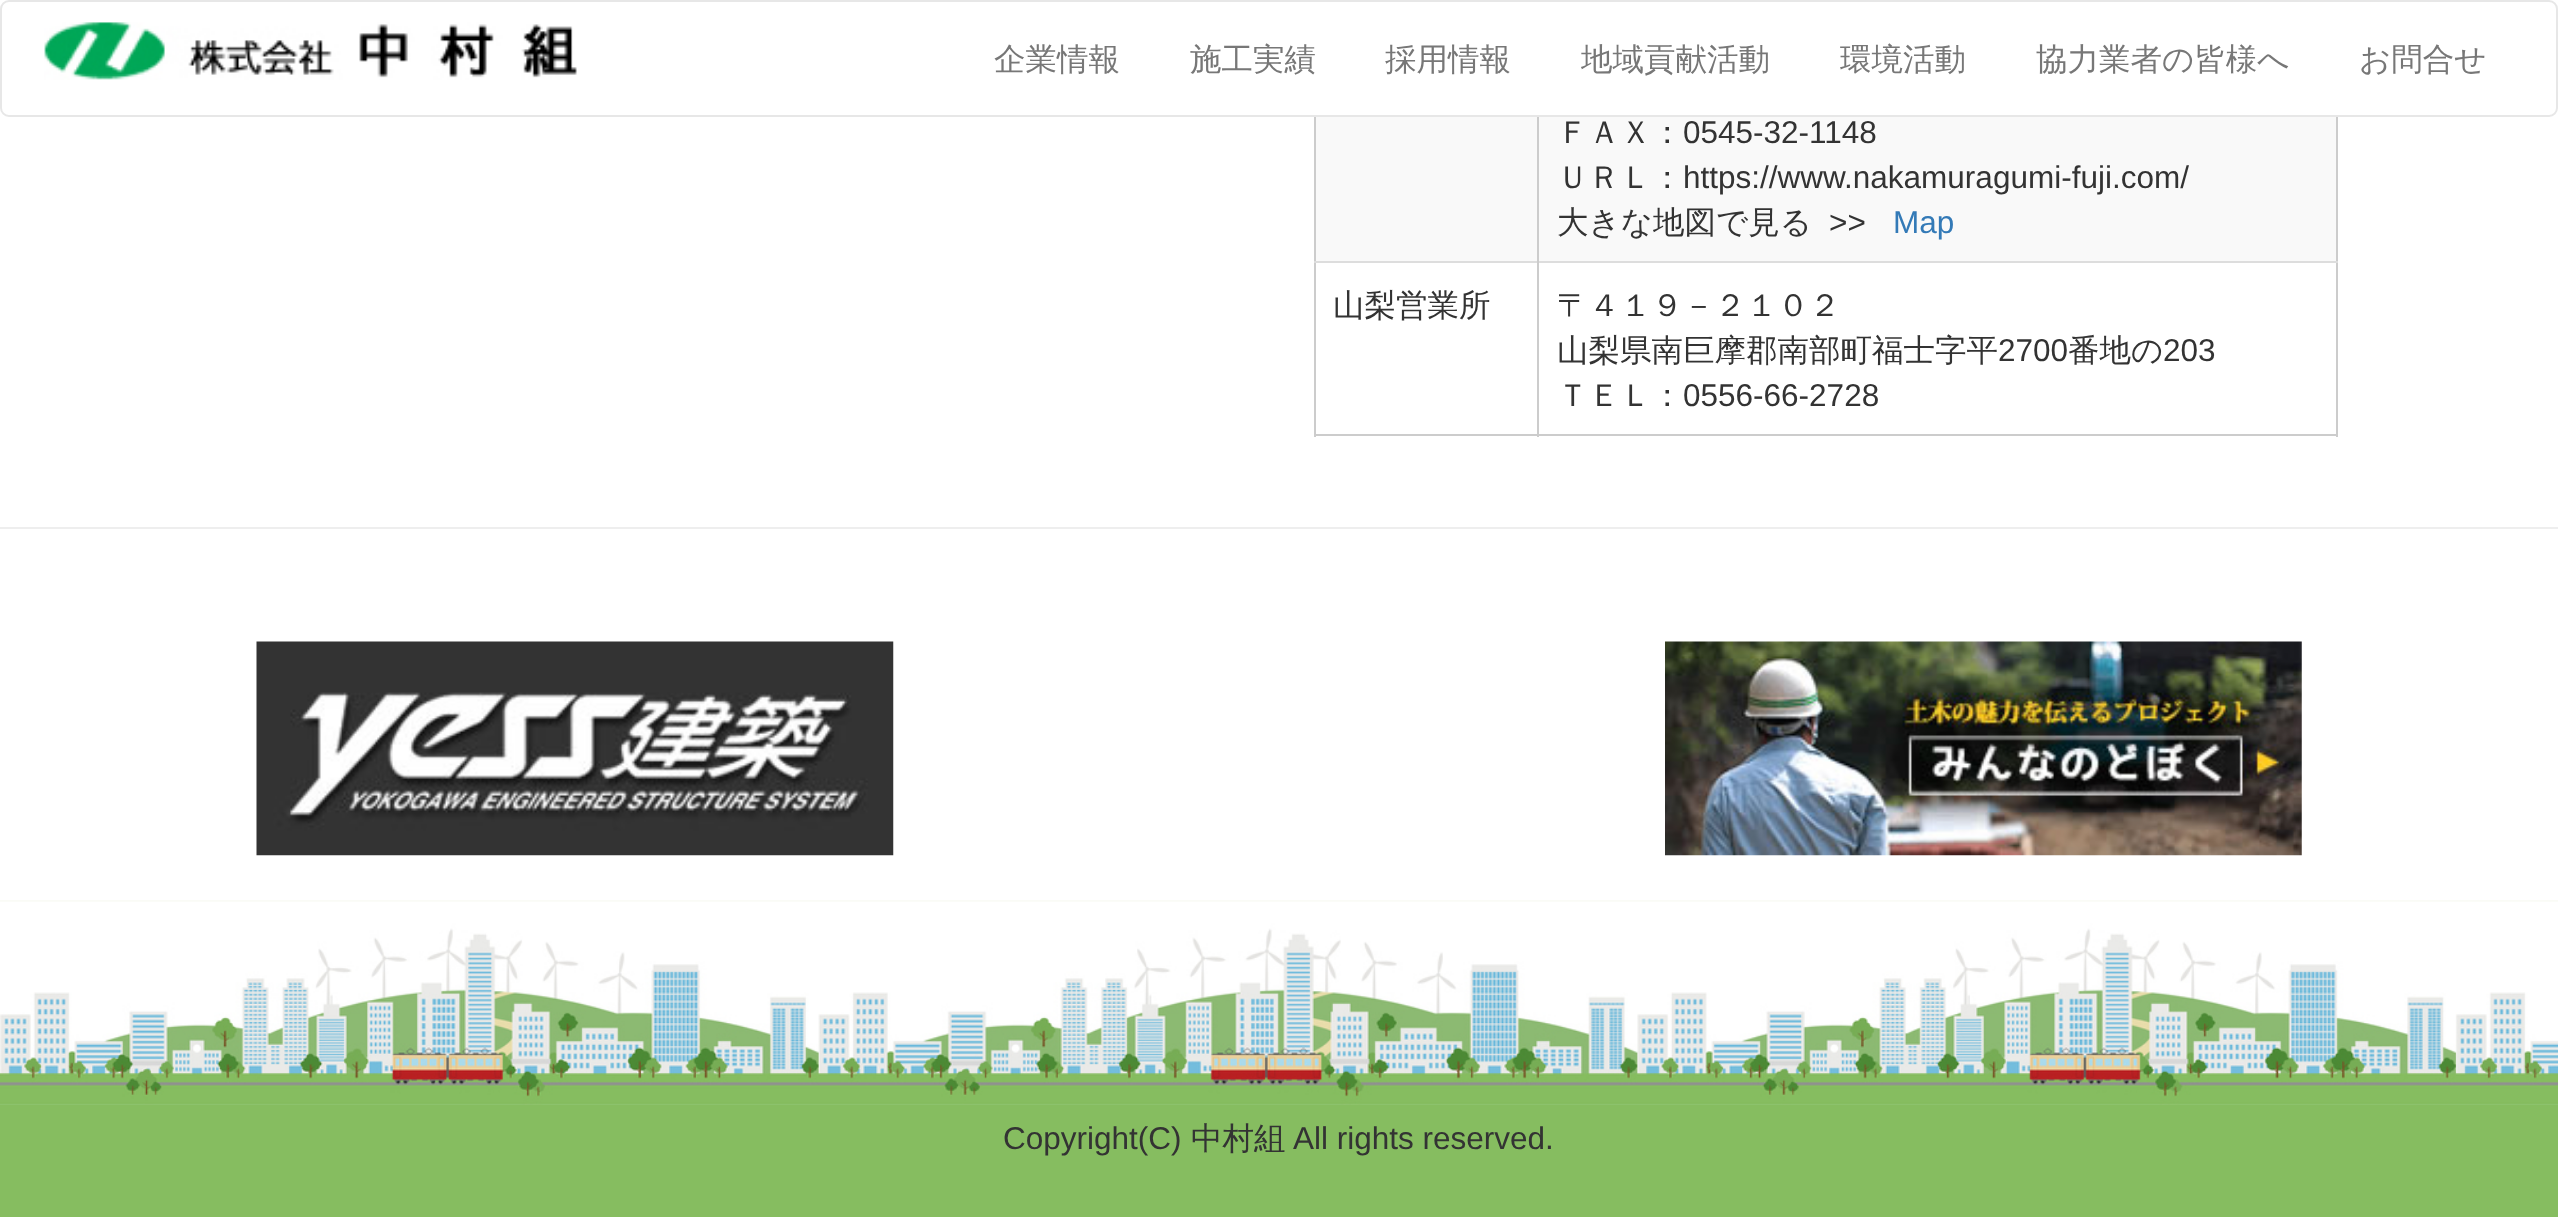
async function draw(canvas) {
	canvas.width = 2558;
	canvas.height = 1217;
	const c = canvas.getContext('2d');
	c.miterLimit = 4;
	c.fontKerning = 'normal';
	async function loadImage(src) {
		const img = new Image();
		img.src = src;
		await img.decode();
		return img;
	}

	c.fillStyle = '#fff';
	c.fillRect(0, 0, 2558, 1217);
	c.beginPath();
	c.roundRect(1, 1, 2556, 115, 8);
	c.strokeStyle = '#e7e7e7';
	c.lineWidth = 2;
	c.stroke();
	c.drawImage(await loadImage('img1.png'), 44, 22, 533, 58);
	c.font = '500 31.5px WenQuanYi Zen Hei';
	c.fillStyle = '#777';
	for (const [text, x, y] of [
		['企業情報', 994, 70],
		['施工実績', 1190, 70],
		['採用情報', 1385, 70],
		['地域貢献活動', 1581, 70],
		['環境活動', 1840, 70],
		['協力業者の皆様へ', 2036, 70],
		['お問合せ', 2359, 70],
	]) {
		c.fillText(text, x, y);
	}
	for (const [x, y, w, h, color] of [
		[2336, 117, 2, 320, '#ccc'],
		[1314, 434, 1024, 2, '#ccc'],
		[1314, 117, 2, 320, '#ccc'],
		[1316, 117, 1020, 144, '#f9f9f9'],
	]) {
		c.fillStyle = color;
		c.fillRect(x, y, w, h);
	}
	c.fillStyle = '#333';
	c.fillText('ＦＡＸ：', 1557, 143);
	c.font = '31.5px Liberation Sans';
	c.fillText('0545-32-1148', 1683, 143);
	c.font = '500 31.5px WenQuanYi Zen Hei';
	c.fillText('ＵＲＬ：', 1557, 188);
	c.font = '31.5px Liberation Sans';
	c.fillText('https://www.nakamuragumi-fuji.com/', 1683, 188);
	c.font = '500 31.5px WenQuanYi Zen Hei';
	c.fillText('大きな地図で見る', 1557, 233);
	c.font = '31.5px Liberation Sans';
	c.fillText('>>', 1829, 233);
	c.fillStyle = '#337ab7';
	c.fillText('Map', 1893, 233);
	c.fillStyle = '#ddd';
	c.fillRect(1314, 261, 1024, 2);
	c.fillStyle = '#ccc';
	c.fillRect(1537, 117, 2, 320);
	c.font = '500 31.5px WenQuanYi Zen Hei';
	c.fillStyle = '#333';
	for (const [text, x, y] of [
		['山梨営業所', 1333, 316],
		['〒４１９－２１０２', 1557, 316],
		['山梨県南巨摩郡南部町福士字平', 1557, 361],
	]) {
		c.fillText(text, x, y);
	}
	c.font = '31.5px Liberation Sans';
	c.fillText('2700', 1998, 361);
	c.font = '500 31.5px WenQuanYi Zen Hei';
	c.fillText('番地の', 2068, 361);
	c.font = '31.5px Liberation Sans';
	c.fillText('203', 2163, 361);
	c.font = '500 31.5px WenQuanYi Zen Hei';
	c.fillText('ＴＥＬ：', 1557, 406);
	c.font = '31.5px Liberation Sans';
	c.fillText('0556-66-2728', 1683, 406);
	c.fillStyle = '#eee';
	c.fillRect(0, 527, 2558, 2);
	c.drawImage(await loadImage('img2.png'), 256, 641, 638, 215);
	c.drawImage(await loadImage('img3.png'), 1665, 641, 637, 215);
	c.drawImage(await loadImage('img4.png'), 0, 900, 2558, 205);
	c.fillStyle = '#86bd60';
	c.fillRect(0, 1105, 2558, 112);
	c.fillStyle = '#333';
	c.fillText('Copyright(C)', 1003, 1149);
	c.font = '500 31.5px WenQuanYi Zen Hei';
	c.fillText('中村組', 1191, 1149);
	c.font = '31.5px Liberation Sans';
	c.fillText('All rights reserved.', 1293, 1149);
}

draw(document.querySelector('canvas'));
